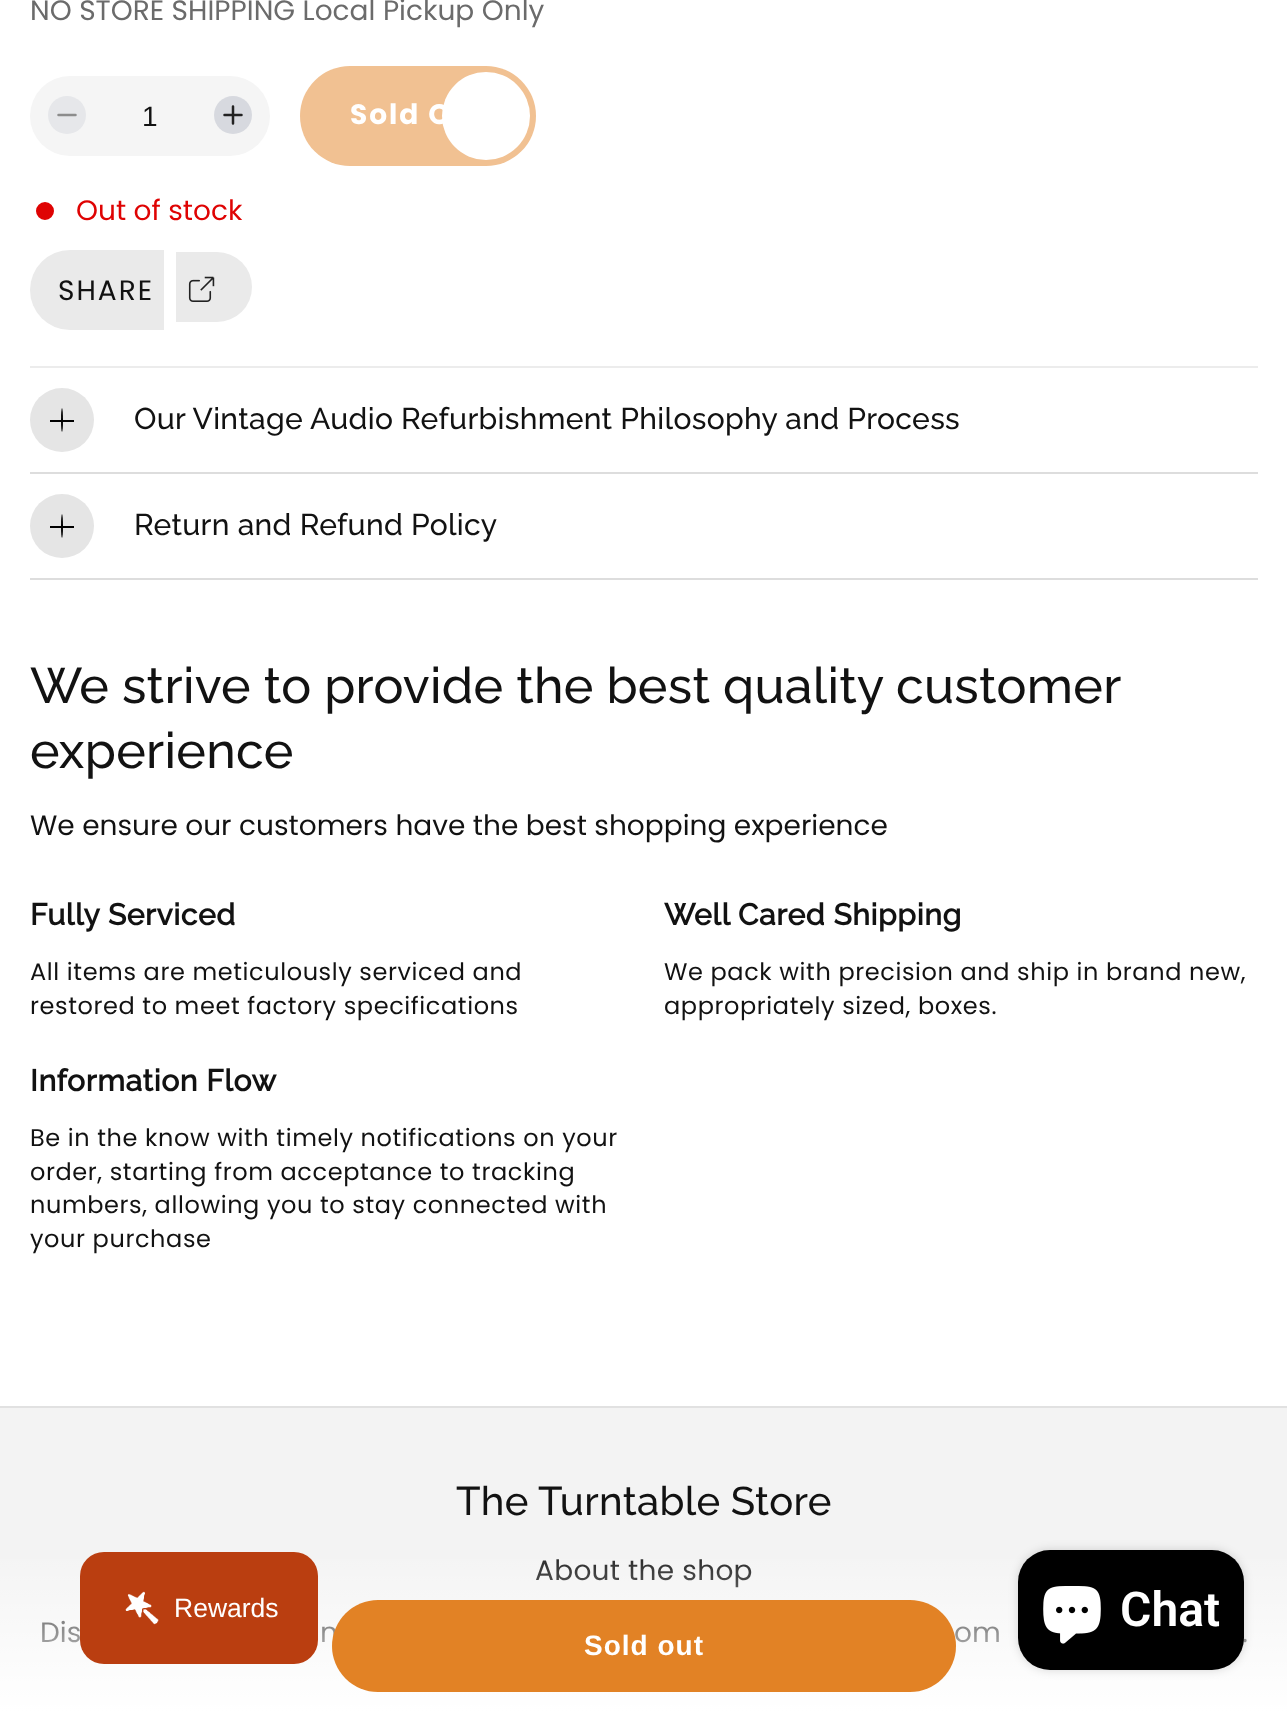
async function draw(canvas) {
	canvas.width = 1287;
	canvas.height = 1712;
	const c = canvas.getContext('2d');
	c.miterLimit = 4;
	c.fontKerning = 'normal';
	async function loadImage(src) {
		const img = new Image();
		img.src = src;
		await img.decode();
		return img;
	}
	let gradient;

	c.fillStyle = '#fff';
	c.fillRect(0, 0, 1287, 1712);
	c.font = '28px Poppins';
	c.fillStyle = '#6b6b6b';
	c.fillText('NO STORE SHIPPING Local Pickup Only', 30, 20);
	c.fillStyle = '#f5f5f5';
	c.beginPath();
	c.roundRect(30, 76, 240, 80, 40);
	c.fill();
	c.fillStyle = '#e6e7ea';
	c.beginPath();
	c.arc(67, 115, 19, 0, 2 * Math.PI);
	c.fill();
	c.beginPath();
	c.moveTo(75.5, 115);
	c.lineTo(58.5, 115);
	c.strokeStyle = '#8c8c8c';
	c.lineWidth = 2.5;
	c.lineCap = 'round';
	c.stroke();
	c.font = '28px Liberation Sans';
	c.fillStyle = '#121212';
	c.fillText('1', 142, 126);
	c.fillStyle = '#d7d9df';
	c.beginPath();
	c.arc(233, 115, 19, 0, 2 * Math.PI);
	c.fill();
	c.beginPath();
	c.moveTo(233, 106.5);
	c.lineTo(233, 123.5);
	c.moveTo(241.5, 115);
	c.lineTo(224.5, 115);
	c.strokeStyle = '#222';
	c.stroke();
	c.fillStyle = '#f1c192';
	c.beginPath();
	c.roundRect(300, 66, 236, 100, 50);
	c.fill();
	c.fillStyle = '#fff';
	c.beginPath();
	c.arc(486, 116, 44, 0, 2 * Math.PI);
	c.fill();
	c.letterSpacing = '2px';
	c.font = 'bold 28px Poppins';
	c.fillText('Sold O', 350, 124);
	c.fillStyle = '#df0303';
	c.beginPath();
	c.arc(45, 211, 10, 0, 2 * Math.PI);
	c.fill();
	c.strokeStyle = '#fff';
	c.lineWidth = 2;
	c.stroke();
	c.letterSpacing = '0px';
	c.font = '28px Poppins';
	c.fillText('Out of stock', 76, 220);
	c.fillStyle = '#eaeaea';
	c.beginPath();
	c.roundRect(30, 250, 124, 80, [40, 0, 0, 40]);
	c.fill();
	c.letterSpacing = '2px';
	c.fillStyle = '#121212';
	c.fillText('SHARE', 58, 300);
	c.fillStyle = '#eaeaea';
	c.fillRect(154, 250, 10, 80);
	c.beginPath();
	c.roundRect(176, 252, 76, 70, [0, 35, 35, 0]);
	c.fill();
	c.drawImage(await loadImage('img1.png'), 188, 276, 27, 26);
	c.fillStyle = '#ececec';
	c.fillRect(30, 366, 1228, 2);
	c.fillStyle = '#ddd';
	c.fillRect(30, 472, 1228, 2);
	c.fillStyle = '#e5e5e5';
	c.beginPath();
	c.arc(62, 420, 32, 0, 2 * Math.PI);
	c.fill();
	c.fillStyle = '#000';
	c.fillRect(50, 420, 24, 2);
	c.beginPath();
	c.ellipse(62, 420, 1, 12, 0, 0, 2 * Math.PI);
	c.fill();
	c.letterSpacing = '0.3px';
	c.font = '500 30px Raleway';
	c.fillStyle = '#121212';
	c.fillText('Our Vintage Audio Refurbishment Philosophy and Process', 134, 429);
	c.fillStyle = '#ddd';
	c.fillRect(30, 578, 1228, 2);
	c.fillStyle = '#e5e5e5';
	c.beginPath();
	c.arc(62, 526, 32, 0, 2 * Math.PI);
	c.fill();
	c.fillStyle = '#000';
	c.fillRect(50, 526, 24, 2);
	c.beginPath();
	c.ellipse(62, 526, 1, 12, 0, 0, 2 * Math.PI);
	c.fill();
	c.fillStyle = '#121212';
	c.fillText('Return and Refund Policy', 134, 535);
	c.fillStyle = '#f3f3f3';
	c.fillRect(0, 1408, 1287, 303);
	c.font = '28px Poppins';
	c.fillStyle = '#121212';
	c.fillText('About the shop', 535, 1580);
	c.letterSpacing = '0px';
	for (const [text, x, y] of [
		['Dis', 40, 1642],
		['n', 320, 1642],
		['om', 954, 1642],
		['.', 1242, 1642],
	]) {
		c.fillText(text, x, y);
	}
	gradient = c.createLinearGradient(644, 1712, 644, 1540);
	gradient.addColorStop(0, '#fff');
	gradient.addColorStop(1, '#ffffff00');
	c.fillStyle = gradient;
	c.fillRect(0, 1559, 1287, 152);
	c.fillStyle = '#e28225';
	c.beginPath();
	c.roundRect(332, 1600, 624, 92, 46);
	c.fill();
	c.letterSpacing = '1px';
	c.font = 'bold 28px Liberation Sans';
	c.fillStyle = '#fff';
	c.fillText('Sold out', 584, 1655);
	c.letterSpacing = '0.3px';
	c.wordSpacing = '-0.25px';
	c.font = '500 50px Raleway';
	c.fillStyle = '#121212';
	c.fillText('We strive to provide the best quality customer', 30, 703);
	c.wordSpacing = '0px';
	c.fillText('experience', 30, 768);
	c.letterSpacing = '0px';
	c.font = '28px Poppins';
	c.fillText('We ensure our customers have the best shopping experience', 30, 835);
	c.letterSpacing = '0.6px';
	c.font = 'bold 30px Raleway';
	c.fillText('Fully Serviced', 30, 925);
	c.font = '24px Poppins';
	c.fillText('All items are meticulously serviced and', 30, 980);
	c.fillText('restored to meet factory specifications', 30, 1014);
	c.font = 'bold 30px Raleway';
	c.fillText('Well Cared Shipping', 664, 925);
	c.font = '24px Poppins';
	c.fillText('We pack with precision and ship in brand new,', 664, 980);
	c.fillText('appropriately sized, boxes.', 664, 1014);
	c.font = 'bold 30px Raleway';
	c.fillText('Information Flow', 30, 1091);
	c.font = '24px Poppins';
	for (const [text, x, y] of [
		['Be in the know with timely notifications on your', 30, 1146],
		['order, starting from acceptance to tracking', 30, 1180],
		['numbers, allowing you to stay connected with', 30, 1213],
		['your purchase', 30, 1247],
	]) {
		c.fillText(text, x, y);
	}
	c.fillStyle = '#e1e1e1';
	c.fillRect(0, 1406, 1287, 2);
	c.letterSpacing = '0.3px';
	c.font = '500 40px Raleway';
	c.fillStyle = '#121212';
	c.fillText('The Turntable Store', 456, 1515);
	c.fillStyle = '#ba3e10';
	c.beginPath();
	c.roundRect(80, 1552, 238, 112, 24);
	c.fill();
	c.drawImage(await loadImage('img2.png'), 125, 1591, 34, 34);
	c.letterSpacing = '0px';
	c.font = '26.5px Liberation Sans';
	c.fillStyle = '#fff';
	c.fillText('Rewards', 174, 1617);
	c.fillStyle = '#00000026';
	c.filter = 'blur(5px)';
	c.beginPath();
	c.roundRect(1018, 1550, 226, 120, 32);
	c.fill();
	c.filter = 'none';
	c.fillStyle = '#000';
	c.beginPath();
	c.roundRect(1018, 1550, 226, 120, 32);
	c.fill();
	c.drawImage(await loadImage('img3.png'), 1043, 1586, 58, 58);
	c.font = '600 48px Roboto';
	c.fillStyle = '#fff';
	c.fillText('Chat', 1120, 1626);
}

draw(document.querySelector('canvas'));
